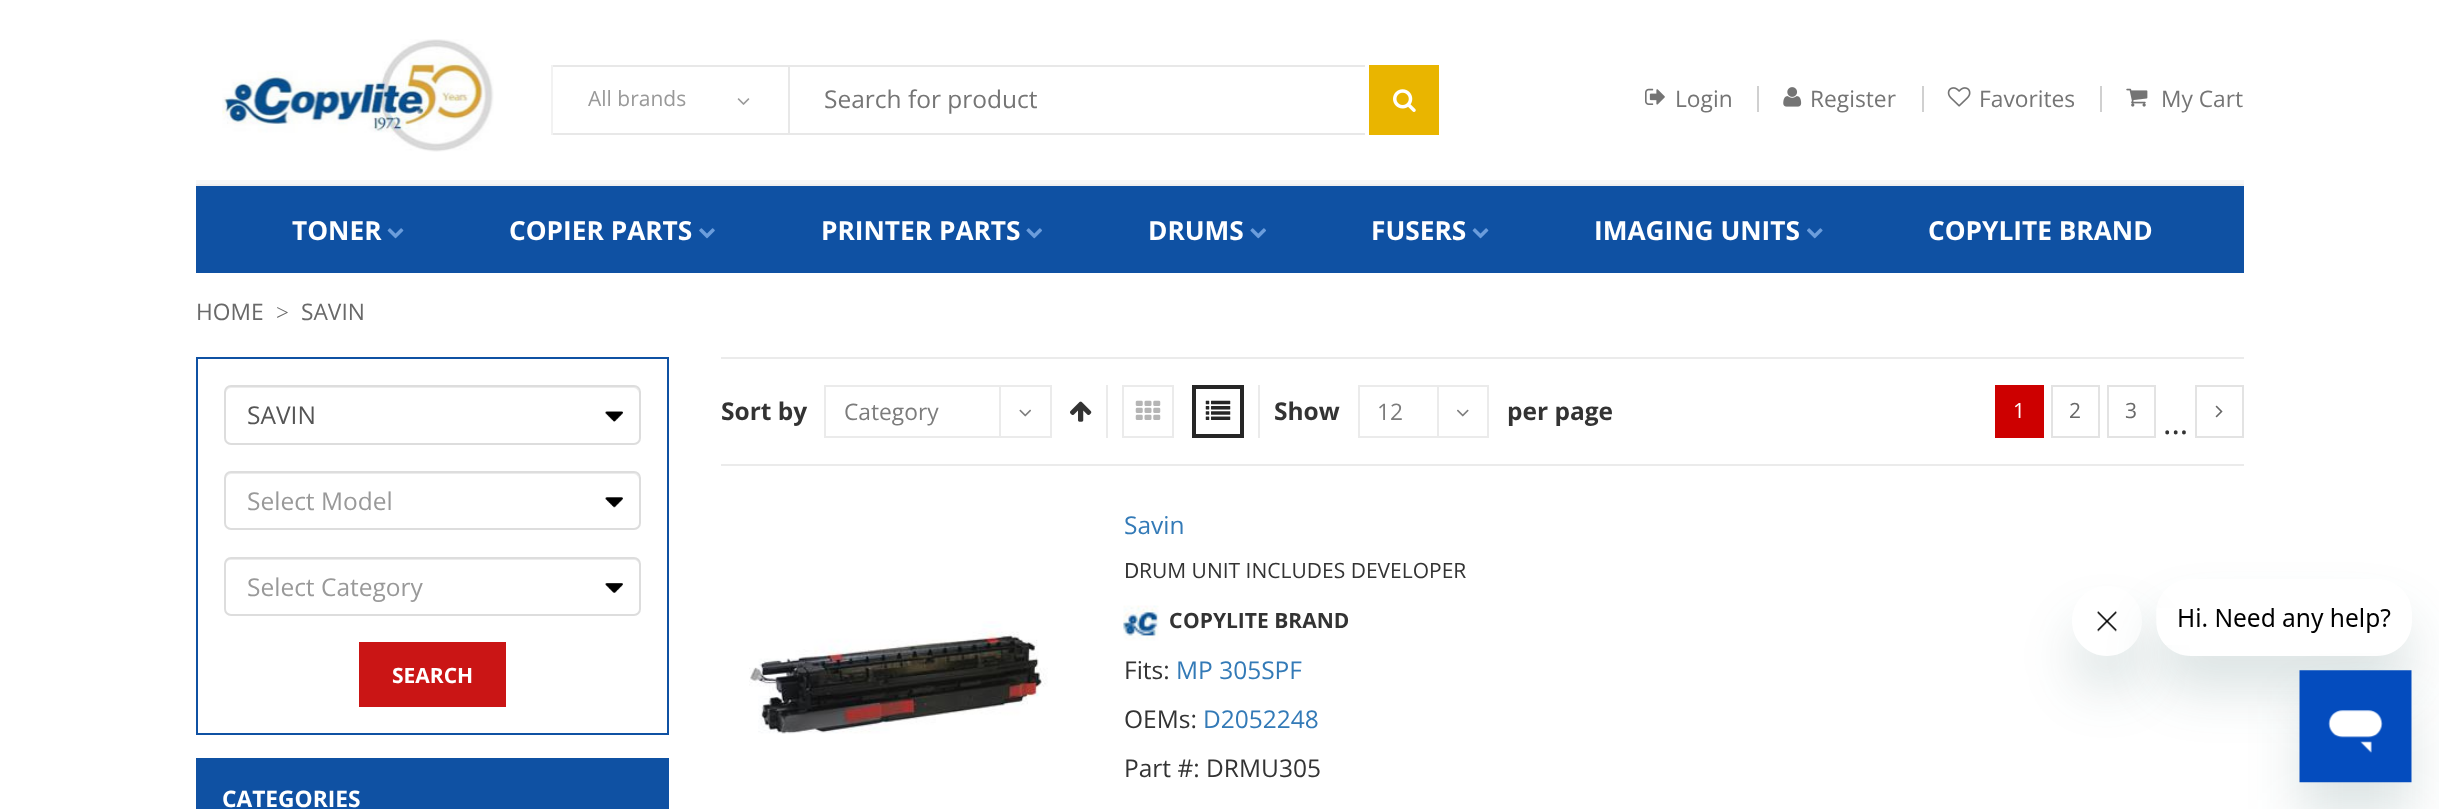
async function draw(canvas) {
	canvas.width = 2439;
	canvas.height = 809;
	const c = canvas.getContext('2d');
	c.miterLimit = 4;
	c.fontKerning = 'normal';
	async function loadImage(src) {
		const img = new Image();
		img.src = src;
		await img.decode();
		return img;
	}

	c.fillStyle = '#fff';
	c.fillRect(0, 0, 2439, 809);
	c.fillStyle = '#f7f7f7';
	c.fillRect(196, 180, 2048, 4);
	c.drawImage(await loadImage('img1.png'), 222, 39, 272, 113);
	for (const [x, y, w, h, color] of [
		[551, 65, 814, 2, '#e8e8e8'],
		[551, 133, 814, 2, '#e8e8e8'],
		[551, 65, 2, 70, '#f2f2f2'],
	]) {
		c.fillStyle = color;
		c.fillRect(x, y, w, h);
	}
	c.font = '21px Open Sans';
	c.fillStyle = '#999';
	c.fillText('All brands', 588, 106);
	c.drawImage(await loadImage('img2.png'), 737, 98, 13, 7);
	c.fillStyle = '#e8e8e8';
	c.fillRect(788, 65, 2, 70);
	c.font = '24.5px Open Sans';
	c.fillStyle = '#757575';
	c.fillText('Search for product', 824, 108);
	c.fillStyle = '#e9b500';
	c.fillRect(1369, 65, 70, 70);
	c.drawImage(await loadImage('img3.png'), 1393, 89, 23, 23);
	c.fillStyle = '#d0d0d0';
	c.fillRect(1757, 86, 2, 26);
	c.drawImage(await loadImage('img4.png'), 1645, 88, 20, 17);
	c.font = '22.75px Open Sans';
	c.fillStyle = '#757575';
	c.fillText('Login', 1675, 107);
	c.fillStyle = '#d0d0d0';
	c.fillRect(1922, 86, 2, 26);
	c.drawImage(await loadImage('img5.png'), 1783, 87, 19, 20);
	c.fillStyle = '#757575';
	c.fillText('Register', 1810, 107);
	c.fillStyle = '#d0d0d0';
	c.fillRect(2100, 86, 2, 26);
	c.drawImage(await loadImage('img6.png'), 1947, 87, 24, 20);
	c.fillStyle = '#757575';
	c.fillText('Favorites', 1979, 107);
	c.drawImage(await loadImage('img7.png'), 2126, 88, 22, 19);
	c.fillText('My Cart', 2161, 107);
	c.fillStyle = '#f0f0f0';
	c.fillRect(196, 184, 2048, 2);
	c.fillStyle = '#0f51a3';
	c.fillRect(196, 186, 2048, 87);
	c.font = 'bold 26.25px Open Sans';
	c.fillStyle = '#fff';
	c.fillText('TONER', 292, 240);
	c.drawImage(await loadImage('img8.png'), 387, 228, 17, 11);
	c.fillText('COPIER PARTS', 509, 240);
	c.drawImage(await loadImage('img9.png'), 699, 228, 16, 11);
	c.fillText('PRINTER PARTS', 821, 240);
	c.drawImage(await loadImage('img10.png'), 1026, 228, 16, 11);
	c.fillText('DRUMS', 1148, 240);
	c.drawImage(await loadImage('img10.png'), 1250, 228, 16, 11);
	c.fillText('FUSERS', 1371, 240);
	c.drawImage(await loadImage('img8.png'), 1472, 228, 17, 11);
	c.fillText('IMAGING UNITS', 1594, 240);
	c.drawImage(await loadImage('img11.png'), 1807, 228, 16, 11);
	c.fillText('COPYLITE BRAND', 1928, 240);
	c.font = '22.75px Open Sans';
	c.fillStyle = '#696969';
	c.fillText('HOME', 196, 320);
	c.font = '22.75px Liberation Serif';
	c.fillText('>', 276, 320);
	c.font = '22.75px Open Sans';
	c.fillText('SAVIN', 301, 320);
	c.strokeStyle = '#0f51a3';
	c.lineWidth = 2;
	c.strokeRect(197, 358, 471, 376);
	c.drawImage(await loadImage('img12.png'), 605, 411, 18, 11);
	c.fillStyle = '#ececec';
	c.beginPath();
	c.moveTo(231, 388);
	c.lineTo(634, 388);
	c.bezierCurveTo(636, 388, 639, 391, 639, 394);
	c.lineTo(639, 392);
	c.bezierCurveTo(639, 389, 637, 387, 634, 387);
	c.lineTo(231, 387);
	c.bezierCurveTo(228, 387, 226, 389, 226, 392);
	c.lineTo(226, 394);
	c.bezierCurveTo(226, 391, 228, 388, 231, 388);
	c.closePath();
	c.fill();
	c.beginPath();
	c.roundRect(225, 386, 415, 58, 6);
	c.strokeStyle = '#ddd';
	c.stroke();
	c.font = '24.5px Open Sans';
	c.fillStyle = '#555';
	c.fillText('SAVIN', 247, 424);
	c.drawImage(await loadImage('img13.png'), 605, 497, 18, 11);
	c.fillStyle = '#ececec';
	c.beginPath();
	c.moveTo(231, 474);
	c.lineTo(634, 474);
	c.bezierCurveTo(636, 474, 639, 477, 639, 480);
	c.lineTo(639, 478);
	c.bezierCurveTo(639, 475, 637, 473, 634, 473);
	c.lineTo(231, 473);
	c.bezierCurveTo(228, 473, 226, 475, 226, 478);
	c.lineTo(226, 480);
	c.bezierCurveTo(226, 477, 228, 474, 231, 474);
	c.closePath();
	c.fill();
	c.beginPath();
	c.roundRect(225, 472, 415, 57, 6);
	c.stroke();
	c.fillStyle = '#999';
	c.fillText('Select Model', 247, 510);
	c.drawImage(await loadImage('img14.png'), 605, 583, 18, 10);
	c.fillStyle = '#ececec';
	c.beginPath();
	c.moveTo(231, 560);
	c.lineTo(634, 560);
	c.bezierCurveTo(636, 560, 639, 562, 639, 565);
	c.lineTo(639, 563);
	c.bezierCurveTo(639, 560, 637, 558, 634, 558);
	c.lineTo(231, 558);
	c.bezierCurveTo(228, 558, 226, 560, 226, 563);
	c.lineTo(226, 565);
	c.bezierCurveTo(226, 562, 228, 560, 231, 560);
	c.closePath();
	c.fill();
	c.beginPath();
	c.roundRect(225, 558, 415, 57, 6);
	c.stroke();
	c.fillStyle = '#999';
	c.fillText('Select Category', 247, 596);
	c.fillStyle = '#ca1515';
	c.fillRect(359, 642, 147, 65);
	c.font = 'bold 21px Open Sans';
	c.fillStyle = '#fff';
	c.fillText('SEARCH', 392, 683);
	c.fillStyle = '#0f51a3';
	c.fillRect(196, 758, 473, 51);
	c.font = 'bold 22.75px Open Sans';
	c.fillStyle = '#fff';
	c.fillText('CATEGORIES', 222, 807);
	for (const [x, y, w, h, color] of [
		[721, 357, 1523, 2, '#ebebeb'],
		[721, 464, 1523, 2, '#ebebeb'],
		[1106, 385, 2, 53, '#ebebeb'],
	]) {
		c.fillStyle = color;
		c.fillRect(x, y, w, h);
	}
	c.font = 'bold 24.5px Open Sans';
	c.fillStyle = '#333';
	c.fillText('Sort by', 721, 420);
	c.strokeStyle = '#ebebeb';
	c.strokeRect(825, 386, 226, 51);
	c.font = '22.75px Open Sans';
	c.fillStyle = '#7c7c7c';
	c.fillText('Category', 844, 420);
	c.strokeRect(1000, 386, 51, 51);
	c.drawImage(await loadImage('img15.png'), 1019, 409, 12, 8);
	c.drawImage(await loadImage('img16.png'), 1070, 401, 22, 21);
	c.fillStyle = '#ebebeb';
	c.fillRect(1258, 385, 2, 53);
	c.drawImage(await loadImage('img17.png'), 1135, 400, 26, 20);
	c.strokeRect(1123, 386, 50, 51);
	c.drawImage(await loadImage('img18.png'), 1205, 400, 26, 20);
	c.strokeStyle = '#262626';
	c.lineWidth = 4;
	c.strokeRect(1194, 387, 48, 49);
	c.font = 'bold 24.5px Open Sans';
	c.fillStyle = '#333';
	c.fillText('Show', 1274, 420);
	c.strokeStyle = '#ebebeb';
	c.lineWidth = 2;
	c.strokeRect(1359, 386, 129, 51);
	c.font = '22.75px Open Sans';
	c.fillStyle = '#7c7c7c';
	c.fillText('12', 1377, 420);
	c.strokeRect(1438, 386, 50, 51);
	c.drawImage(await loadImage('img19.png'), 1457, 409, 12, 8);
	c.font = 'bold 24.5px Open Sans';
	c.fillStyle = '#333';
	c.fillText('per page', 1507, 420);
	c.fillStyle = '#cd0000';
	c.fillRect(1995, 385, 49, 53);
	c.font = '21px Open Sans';
	c.fillStyle = '#fff';
	c.fillText('1', 2013, 418);
	c.strokeStyle = '#e3e3e3';
	c.strokeRect(2052, 386, 47, 51);
	c.fillStyle = '#696969';
	c.fillText('2', 2069, 418);
	c.strokeRect(2108, 386, 47, 51);
	c.fillText('3', 2125, 418);
	c.strokeRect(2196, 386, 47, 51);
	c.drawImage(await loadImage('img20.png'), 2215, 405, 8, 13);
	c.font = '32px Open Sans';
	c.fillStyle = '#333';
	c.fillText('...', 2163, 434);
	c.font = '24.5px Open Sans';
	c.fillStyle = '#337ab7';
	c.fillText('Savin', 1124, 534);
	c.font = '21px Noto Sans';
	c.fillStyle = '#333';
	c.fillText('D', 1124, 578);
	c.font = '21px Open Sans';
	c.fillText('RUM UNIT INCLUDES DEVELOPER', 1139, 578);
	c.drawImage(await loadImage('img21.png'), 749, 621, 299, 113);
	c.drawImage(await loadImage('img22.png'), 1123, 605, 36, 36);
	c.font = 'bold 21px Noto Sans';
	c.fillText('C', 1169, 628);
	c.font = 'bold 21px Open Sans';
	c.fillText('OPYLITE BRAND', 1183, 628);
	c.font = '24.5px Open Sans';
	c.fillText('Fits:', 1124, 679);
	c.fillStyle = '#337ab7';
	c.fillText('MP 305SPF', 1176, 679);
	c.fillStyle = '#333';
	c.fillText('OEMs:', 1124, 728);
	c.fillStyle = '#337ab7';
	c.fillText('D2052248', 1203, 728);
	c.fillStyle = '#333';
	c.fillText('Part #: DRMU305', 1124, 777);
	c.save();
	c.beginPath();
	c.moveTo(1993, 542);
	c.lineTo(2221, 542);
	c.lineTo(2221, 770);
	c.lineTo(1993, 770);
	c.closePath();
	c.moveTo(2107, 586);
	c.bezierCurveTo(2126.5, 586, 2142, 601.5, 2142, 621);
	c.bezierCurveTo(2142, 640.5, 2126.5, 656, 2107, 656);
	c.bezierCurveTo(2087.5, 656, 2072, 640.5, 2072, 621);
	c.bezierCurveTo(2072, 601.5, 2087.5, 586, 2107, 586);
	c.closePath();
	c.clip('evenodd');
	c.fillStyle = '#17494d26';
	c.filter = 'blur(26px)';
	c.beginPath();
	c.roundRect(2072, 621, 70, 70, 35);
	c.fill();
	c.filter = 'none';
	c.restore();
	c.drawImage(await loadImage('img24.png'), 2097, 611, 20, 21);
	c.save();
	c.beginPath();
	c.moveTo(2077, 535);
	c.lineTo(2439, 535);
	c.lineTo(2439, 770);
	c.lineTo(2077, 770);
	c.closePath();
	c.moveTo(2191, 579);
	c.lineTo(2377, 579);
	c.bezierCurveTo(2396.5, 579, 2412, 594.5, 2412, 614);
	c.lineTo(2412, 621);
	c.bezierCurveTo(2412, 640.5, 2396.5, 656, 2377, 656);
	c.lineTo(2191, 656);
	c.bezierCurveTo(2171.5, 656, 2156, 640.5, 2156, 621);
	c.lineTo(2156, 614);
	c.bezierCurveTo(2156, 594.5, 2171.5, 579, 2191, 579);
	c.closePath();
	c.clip('evenodd');
	c.fillStyle = '#17494d26';
	c.filter = 'blur(26px)';
	c.beginPath();
	c.roundRect(2156, 614, 256, 77, 35);
	c.fill();
	c.filter = 'none';
	c.restore();
	c.drawImage(await loadImage('img23.png'), 2157, 608, 234, 37);
	c.fillStyle = '#17494d26';
	c.filter = 'blur(26px)';
	c.beginPath();
	c.rect(2300, 705, 112, 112);
	c.fill();
	c.filter = 'none';
	c.drawImage(await loadImage('img25.png'), 2299, 670, 113, 113);
}

draw(document.querySelector('canvas'));
